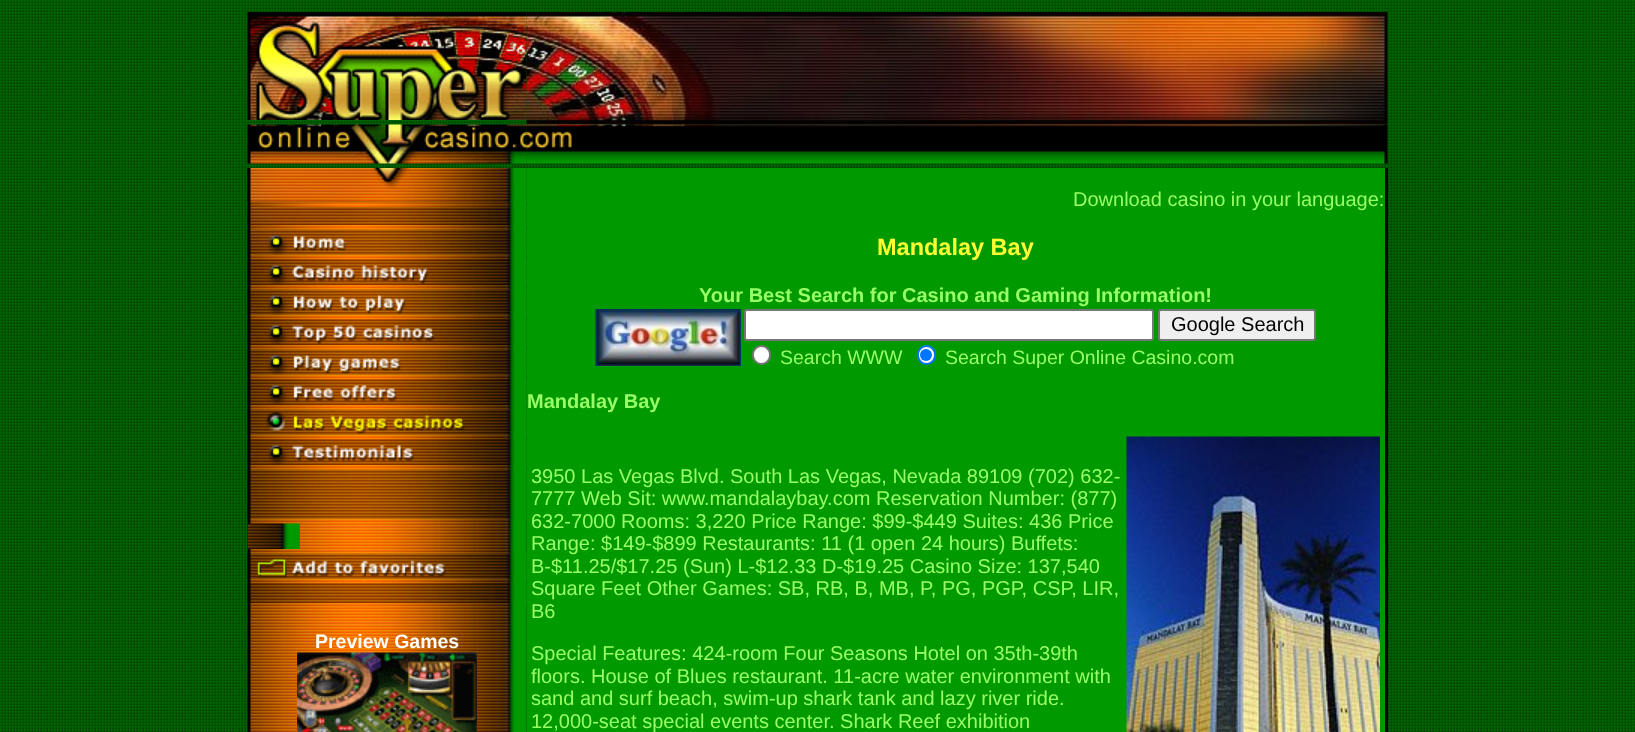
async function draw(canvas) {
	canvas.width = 1635;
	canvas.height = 732;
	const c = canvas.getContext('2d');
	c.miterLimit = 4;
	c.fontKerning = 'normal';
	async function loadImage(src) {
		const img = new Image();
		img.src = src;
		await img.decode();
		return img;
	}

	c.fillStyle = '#fff';
	c.fillRect(0, 0, 1635, 732);
	c.drawImage(await loadImage('img1.png'), 0, 0, 1635, 732);
	c.drawImage(await loadImage('img3.png'), 526, 12, 862, 113);
	c.drawImage(await loadImage('img2.png'), 247, 12, 280, 108);
	c.drawImage(await loadImage('img4.png'), 247, 124, 280, 40);
	c.drawImage(await loadImage('img5.png'), 526, 124, 862, 40);
	c.drawImage(await loadImage('img6.png'), 247, 168, 280, 564);
	c.drawImage(await loadImage('img7.png'), 247, 168, 280, 35);
	c.drawImage(await loadImage('img8.png'), 247, 207, 280, 18);
	c.drawImage(await loadImage('img9.png'), 247, 229, 227, 26);
	c.drawImage(await loadImage('img10.png'), 474, 229, 53, 26);
	c.drawImage(await loadImage('img11.png'), 247, 259, 227, 26);
	c.drawImage(await loadImage('img12.png'), 474, 259, 53, 26);
	c.drawImage(await loadImage('img13.png'), 247, 289, 227, 26);
	c.drawImage(await loadImage('img14.png'), 474, 289, 53, 26);
	c.drawImage(await loadImage('img15.png'), 247, 319, 227, 26);
	c.drawImage(await loadImage('img12.png'), 474, 319, 53, 26);
	c.drawImage(await loadImage('img16.png'), 247, 349, 227, 26);
	c.drawImage(await loadImage('img10.png'), 474, 349, 53, 26);
	c.drawImage(await loadImage('img17.png'), 247, 379, 227, 26);
	c.drawImage(await loadImage('img18.png'), 474, 379, 53, 26);
	c.drawImage(await loadImage('img19.png'), 247, 409, 227, 26);
	c.drawImage(await loadImage('img14.png'), 474, 409, 53, 26);
	c.drawImage(await loadImage('img20.png'), 247, 439, 227, 26);
	c.drawImage(await loadImage('img18.png'), 474, 439, 53, 26);
	c.drawImage(await loadImage('img21.png'), 247, 469, 280, 50);
	c.drawImage(await loadImage('img22.png'), 247, 523, 53, 26);
	c.drawImage(await loadImage('img23.png'), 247, 553, 227, 26);
	c.drawImage(await loadImage('img14.png'), 474, 553, 53, 26);
	c.drawImage(await loadImage('img24.png'), 247, 583, 280, 20);
	c.font = 'bold 19.5px Liberation Sans';
	c.fillText('Preview Games', 315, 648);
	c.drawImage(await loadImage('img25.png'), 297, 652, 180, 80);
	c.fillStyle = '#090';
	c.fillRect(527, 168, 858, 564);
	c.font = '20px Liberation Sans';
	c.fillStyle = '#9f6';
	c.fillText('Download casino in your language:', 1073, 206);
	c.font = 'bold 23.5px Liberation Sans';
	c.fillStyle = '#ff3';
	c.fillText('Mandalay Bay', 877, 255);
	c.font = 'bold 20px Liberation Sans';
	c.fillStyle = '#9f6';
	c.fillText('Your Best Search for Casino and Gaming Information!', 699, 302);
	c.drawImage(await loadImage('img26.png'), 595, 309, 146, 57);
	c.fillStyle = '#fff';
	c.beginPath();
	c.roundRect(745, 310, 408, 30, 2);
	c.fill();
	c.strokeStyle = '#767676';
	c.lineWidth = 2;
	c.stroke();
	c.fillStyle = '#efefef';
	c.beginPath();
	c.roundRect(1159, 310, 156, 30, 2);
	c.fill();
	c.stroke();
	c.font = '20px Liberation Sans';
	c.fillStyle = '#000';
	c.fillText('Google Search', 1171, 331);
	c.fillStyle = '#fff';
	c.beginPath();
	c.roundRect(753, 346, 17, 18, 8.5);
	c.fill();
	c.stroke();
	c.font = '19.5px Liberation Sans';
	c.fillStyle = '#9f6';
	c.fillText('Search WWW', 780, 364);
	c.fillStyle = '#fff';
	c.beginPath();
	c.roundRect(918, 346, 17, 18, 8.5);
	c.fill();
	c.strokeStyle = '#0075ff';
	c.stroke();
	c.fillStyle = '#0075ff';
	c.beginPath();
	c.arc(926, 355, 6, 0, 2 * Math.PI);
	c.fill();
	c.fillStyle = '#9f6';
	c.fillText('Search Super Online Casino.com', 945, 364);
	c.font = 'bold 20px Liberation Sans';
	c.fillText('Mandalay Bay', 527, 408);
	c.font = '20px Liberation Sans';
	for (const [text, x, y] of [
		['3950 Las Vegas Blvd. South Las Vegas, Nevada 89109 (702) 632-', 531, 483],
		['7777 Web Sit: www.mandalaybay.com Reservation Number: (877)', 531, 505],
		['632-7000 Rooms: 3,220 Price Range: $99-$449 Suites: 436 Price', 531, 528],
		['Range: $149-$899 Restaurants: 11 (1 open 24 hours) Buffets:', 531, 550],
		['B-$11.25/$17.25 (Sun) L-$12.33 D-$19.25 Casino Size: 137,540', 531, 573],
		['Square Feet Other Games: SB, RB, B, MB, P, PG, PGP, CSP, LIR,', 531, 595],
		['B6', 531, 618],
		['Special Features: 424-room Four Seasons Hotel on 35th-39th', 531, 660],
		['floors. House of Blues restaurant. 11-acre water environment with', 531, 683],
		['sand and surf beach, swim-up shark tank and lazy river ride.', 531, 705],
		['12,000-seat special events center. Shark Reef exhibition', 531, 728],
	]) {
		c.fillText(text, x, y);
	}
	c.drawImage(await loadImage('img27.png'), 1126, 436, 254, 296);
	c.fillStyle = '#000';
	c.fillRect(1385, 168, 3, 564);
}

draw(document.querySelector('canvas'));
